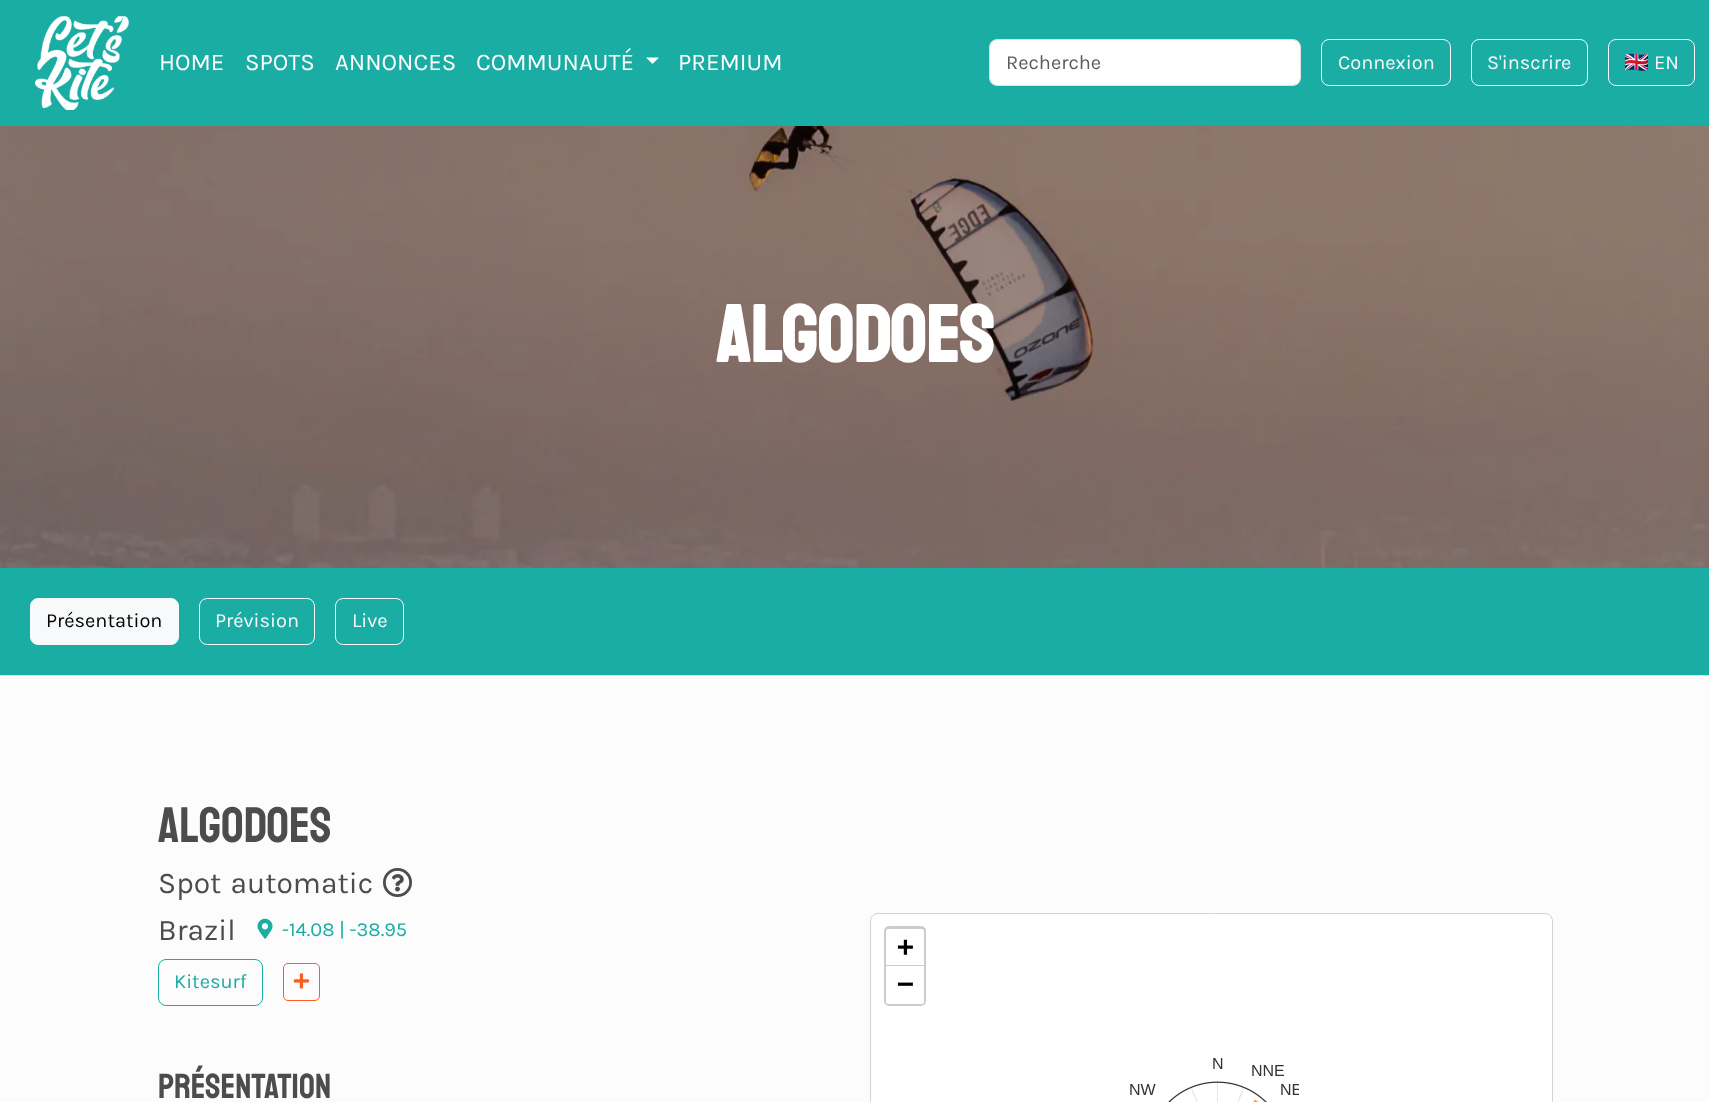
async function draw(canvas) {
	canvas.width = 1709;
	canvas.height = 1102;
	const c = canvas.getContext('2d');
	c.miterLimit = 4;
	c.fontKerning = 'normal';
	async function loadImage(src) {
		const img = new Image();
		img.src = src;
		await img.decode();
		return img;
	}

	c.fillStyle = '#1aada3';
	c.fillRect(0, 0, 1709, 1102);
	c.drawImage(await loadImage('img1.png'), 35, 16, 94, 94);
	c.font = 'italic 24px Karla';
	c.fillStyle = '#fff';
	for (const [text, x, y] of [
		['HOME', 159, 70],
		['SPOTS', 245, 70],
		['ANNONCES', 335, 70],
		['COMMUNAUTÉ', 476, 70],
	]) {
		c.fillText(text, x, y);
	}
	c.beginPath();
	c.moveTo(646, 57.5);
	c.lineTo(659, 57.5);
	c.lineTo(652.5, 64);
	c.closePath();
	c.fill();
	c.fillText('PREMIUM', 678, 70);
	c.beginPath();
	c.roundRect(990, 40, 310, 45, 6);
	c.fill();
	c.beginPath();
	c.roundRect(989.5, 39.5, 311, 46, 7.5);
	c.strokeStyle = '#dee2e6';
	c.stroke();
	c.font = 'italic 20px Karla';
	c.fillStyle = '#595c5f';
	c.fillText('Recherche', 1006, 69);
	c.beginPath();
	c.roundRect(1321.5, 39.5, 129, 46, 7.5);
	c.strokeStyle = '#f8f9fa';
	c.stroke();
	c.fillStyle = '#f8f9fa';
	c.fillText('Connexion', 1338, 69);
	c.beginPath();
	c.roundRect(1471.5, 39.5, 116, 46, 7.5);
	c.stroke();
	c.fillText('S\'inscrire', 1487, 69);
	c.beginPath();
	c.roundRect(1608.5, 39.5, 86, 46, 7.5);
	c.stroke();
	c.font = '20px Noto Color Emoji';
	c.fillText('🇬🇧', 1624, 69);
	c.font = 'italic 20px Karla';
	c.fillText('EN', 1654, 69);
	c.drawImage(await loadImage('img2.png'), 0, 126, 1709, 442);
	c.font = 'italic bold 80px Staatliches';
	c.fillStyle = '#fff';
	c.fillText('Algodoes', 716, 362);
	c.fillStyle = '#dee2e6';
	c.fillRect(0, 675, 1709, 1);
	c.fillStyle = '#f8f9fa';
	c.beginPath();
	c.roundRect(30.5, 598.5, 148, 46, 7.5);
	c.fill();
	c.stroke();
	c.font = 'italic 20px Karla';
	c.fillStyle = '#000';
	c.fillText('Présentation', 46, 627);
	c.beginPath();
	c.roundRect(199.5, 598.5, 115, 46, 7.5);
	c.stroke();
	c.fillStyle = '#f8f9fa';
	c.fillText('Prévision', 215, 627);
	c.beginPath();
	c.roundRect(335.5, 598.5, 68, 46, 7.5);
	c.stroke();
	c.fillText('Live', 352, 627);
	c.fillStyle = '#fcfcfd';
	c.fillRect(0, 676, 1709, 426);
	c.font = 'italic 50px Staatliches';
	c.fillStyle = '#4c4c4c';
	c.fillText('Algodoes', 158, 842);
	c.wordSpacing = '2px';
	c.font = 'italic 30px Karla';
	c.fillText('Spot automatic', 158, 893);
	c.drawImage(await loadImage('img3.png'), 383, 868, 29, 29);
	c.wordSpacing = '0px';
	c.fillText('Brazil', 158, 940);
	c.drawImage(await loadImage('img4.png'), 257, 918, 16, 21);
	c.font = 'italic 20px Karla';
	c.fillStyle = '#1aada3';
	c.fillText('-14.08 | -38.95', 282, 936);
	c.beginPath();
	c.roundRect(158.5, 959.5, 104, 46, 7.5);
	c.strokeStyle = '#1aada3';
	c.stroke();
	c.fillText('Kitesurf', 174, 988);
	c.beginPath();
	c.roundRect(283.5, 963.5, 36, 37, 4.5);
	c.strokeStyle = '#fe5e22';
	c.stroke();
	c.drawImage(await loadImage('img5.png'), 293, 973, 17, 16);
	c.font = 'italic 35px Staatliches';
	c.fillStyle = '#4c4c4c';
	c.fillText('Présentation', 158, 1098);
	c.fillStyle = '#fff';
	c.beginPath();
	c.roundRect(870.5, 913.5, 682, 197, 7.5);
	c.fill();
	c.strokeStyle = '#d3d3d3';
	c.stroke();
	c.beginPath();
	c.roundRect(885.5, 927.5, 39, 77, 3.5);
	c.strokeStyle = '#ccc';
	c.lineWidth = 3;
	c.stroke();
	c.beginPath();
	c.roundRect(886, 929, 38, 37, [2.5, 2.5, 0, 0]);
	c.fill();
	c.fillStyle = '#ccc';
	c.fillRect(886, 965, 38, 1);
	c.font = 'bold 28px DejaVu Sans Mono';
	c.fillStyle = '#000';
	c.fillText('+', 897, 956);
	c.fillStyle = '#fff';
	c.beginPath();
	c.roundRect(886, 966, 38, 38, [0, 0, 2.5, 2.5]);
	c.fill();
	c.fillStyle = '#000';
	c.fillText('−', 897, 993);
	c.font = '16px Liberation Sans';
	c.fillStyle = '#333';
	for (const [text, x, y] of [
		['N', 1212, 1069],
		['NNE', 1251, 1076],
		['NW', 1129, 1095],
	]) {
		c.fillText(text, x, y);
	}
	c.drawImage(await loadImage('img6.png'), 1168, 1081, 99, 21);
	c.save();
	c.beginPath();
	c.rect(1124, 1058, 175, 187);
	c.clip();
	c.fillText('NE', 1280, 1095);
	c.restore();
}

draw(document.querySelector('canvas'));
